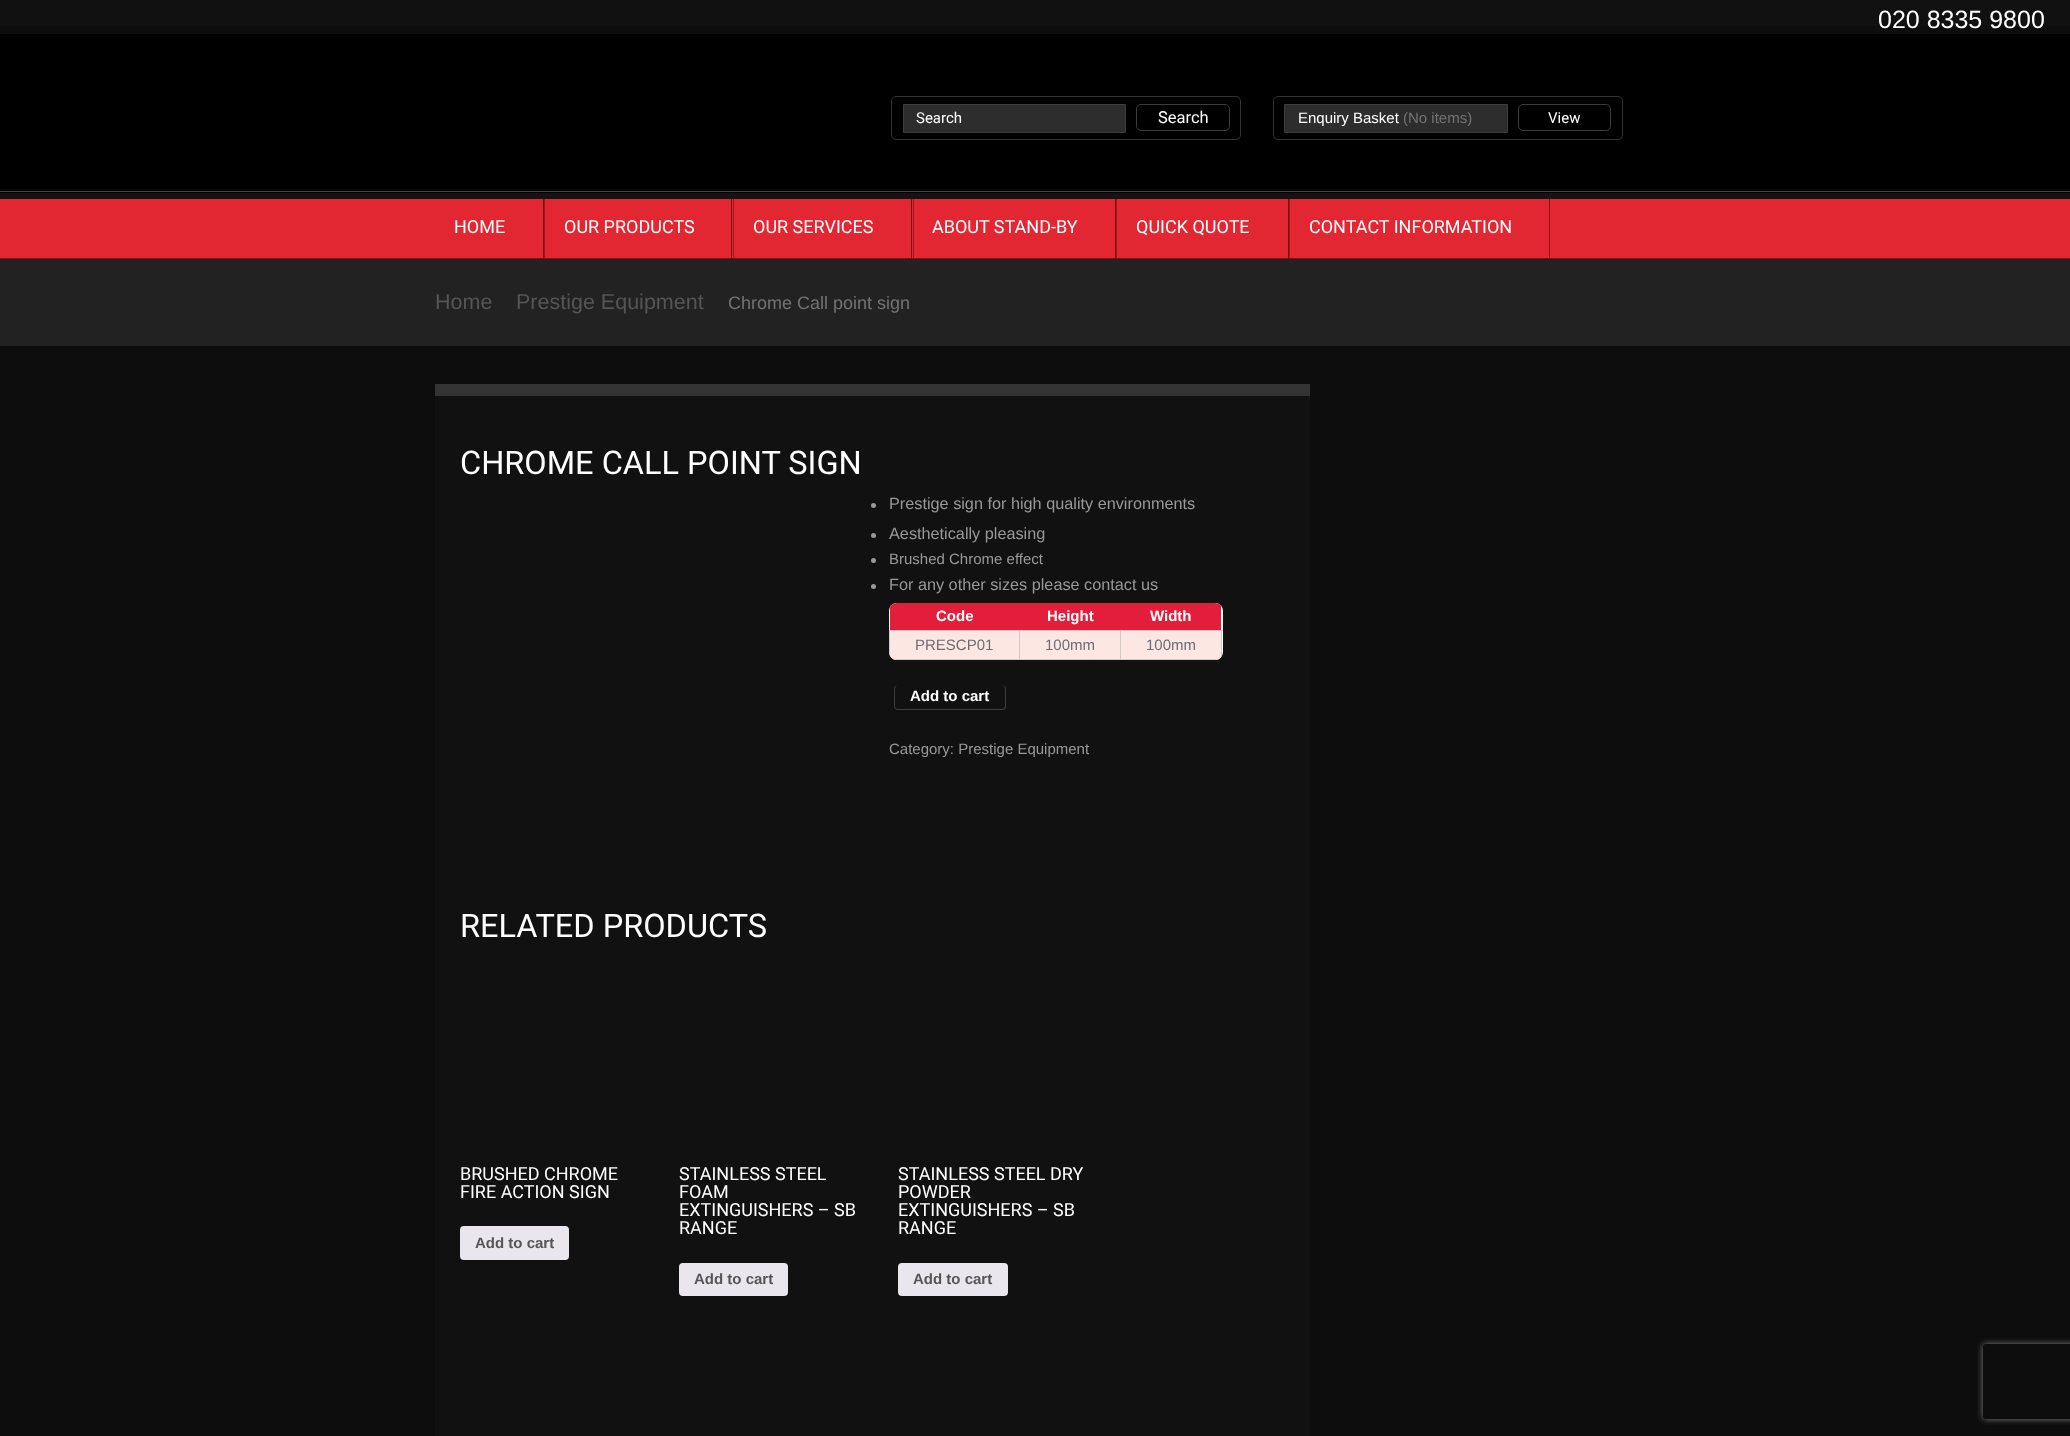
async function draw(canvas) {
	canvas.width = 2070;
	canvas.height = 1436;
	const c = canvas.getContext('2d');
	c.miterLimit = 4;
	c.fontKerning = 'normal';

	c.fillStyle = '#0d0d0d';
	c.fillRect(0, 0, 2070, 1436);
	c.fillStyle = '#111';
	c.fillRect(0, 0, 2070, 26);
	c.font = '25px Arimo';
	c.fillStyle = '#fff';
	c.fillText('020 8335 9800', 1878, 28);
	c.fillStyle = '#000';
	c.fillRect(0, 34, 2070, 159);
	c.fillStyle = '#444';
	c.fillRect(0, 191, 2070, 1);
	c.beginPath();
	c.roundRect(891.5, 96.5, 349, 43, 4.5);
	c.strokeStyle = '#333';
	c.stroke();
	c.fillStyle = '#2d2d2d';
	c.beginPath();
	c.rect(903.5, 104.5, 222, 28);
	c.fill();
	c.strokeStyle = '#3d3d3d';
	c.stroke();
	c.font = '15px Roboto';
	c.fillStyle = '#fff';
	c.fillText('Search', 916, 123);
	c.beginPath();
	c.roundRect(1136.5, 104.5, 93, 26, 4.5);
	c.stroke();
	c.font = '16.5px Roboto';
	c.fillText('Search', 1158, 123);
	c.beginPath();
	c.roundRect(1273.5, 96.5, 349, 43, 4.5);
	c.strokeStyle = '#333';
	c.stroke();
	c.fillStyle = '#2d2d2d';
	c.beginPath();
	c.rect(1284.5, 104.5, 223, 28);
	c.fill();
	c.strokeStyle = '#3d3d3d';
	c.stroke();
	c.font = '15px Arimo';
	c.fillStyle = '#fff';
	c.fillText('Enquiry Basket', 1298, 123);
	c.fillStyle = '#737373';
	c.fillText('(No items)', 1403, 123);
	c.beginPath();
	c.roundRect(1518.5, 104.5, 92, 26, 4.5);
	c.stroke();
	c.font = '15px Roboto';
	c.fillStyle = '#fff';
	c.fillText('View', 1548, 123);
	for (const [x, y, w, h, color] of [
		[0, 199, 2070, 59, '#e22733'],
		[0, 193, 2070, 6, '#141414'],
		[0, 258, 2070, 1, '#95090b'],
		[543, 199, 1, 59, '#870505'],
	]) {
		c.fillStyle = color;
		c.fillRect(x, y, w, h);
	}
	c.font = '18px Roboto';
	c.fillStyle = '#fff';
	c.fillText('HOME', 454, 233);
	c.fillStyle = '#870505';
	c.fillRect(731, 199, 1, 59);
	c.fillStyle = '#951b1c';
	c.fillRect(544, 199, 1, 59);
	c.fillStyle = '#fff';
	c.fillText('OUR PRODUCTS', 564, 233);
	c.fillStyle = '#870505';
	c.fillRect(911, 199, 1, 59);
	c.fillStyle = '#951b1c';
	c.fillRect(733, 199, 1, 59);
	c.fillStyle = '#fff';
	c.fillText('OUR SERVICES', 753, 233);
	c.fillStyle = '#870505';
	c.fillRect(1115, 199, 1, 59);
	c.fillStyle = '#951b1c';
	c.fillRect(913, 199, 1, 59);
	c.fillStyle = '#fff';
	c.fillText('ABOUT STAND-BY', 932, 233);
	c.fillStyle = '#870505';
	c.fillRect(1288, 199, 1, 59);
	c.fillStyle = '#951b1c';
	c.fillRect(1116, 199, 1, 59);
	c.fillStyle = '#fff';
	c.fillText('QUICK QUOTE', 1136, 233);
	c.fillStyle = '#870505';
	c.fillRect(1549, 199, 1, 59);
	c.fillStyle = '#951b1c';
	c.fillRect(1289, 199, 1, 59);
	c.fillStyle = '#fff';
	c.fillText('CONTACT INFORMATION', 1309, 233);
	c.fillStyle = '#222';
	c.fillRect(0, 259, 2070, 87);
	c.font = '21.5px Arimo';
	c.fillStyle = '#555';
	c.fillText('Home', 435, 309);
	c.fillText('Prestige Equipment', 516, 309);
	c.font = '18px Arimo';
	c.fillStyle = '#737373';
	c.fillText('Chrome Call point sign', 728, 309);
	c.fillStyle = '#111';
	c.fillRect(435, 396, 875, 1040);
	c.fillStyle = '#333';
	c.fillRect(435, 384, 875, 12);
	c.font = '32.5px Roboto';
	c.fillStyle = '#fff';
	c.fillText('CHROME CALL POINT SIGN', 460, 474);
	c.fillStyle = '#999';
	c.beginPath();
	c.arc(873.5, 505.5, 2.5, 0, 2 * Math.PI);
	c.fill();
	c.font = '16.25px Arimo';
	c.fillText('Prestige sign for high quality environments', 889, 509);
	c.beginPath();
	c.arc(873.5, 535.5, 2.5, 0, 2 * Math.PI);
	c.fill();
	c.fillText('Aesthetically pleasing', 889, 539);
	c.beginPath();
	c.arc(873.5, 560.5, 2.5, 0, 2 * Math.PI);
	c.fill();
	c.font = '15px Arimo';
	c.fillText('Brushed Chrome effect', 889, 564);
	c.beginPath();
	c.arc(873.5, 586.5, 2.5, 0, 2 * Math.PI);
	c.fill();
	c.font = '16.25px Arimo';
	c.fillText('For any other sizes please contact us', 889, 590);
	c.fillStyle = '#fff';
	c.beginPath();
	c.roundRect(889, 603, 334, 57, 8);
	c.fill();
	c.save();
	c.beginPath();
	c.roundRect(889, 603, 334, 57, 8);
	c.clip();
	c.fillStyle = '#e31e3c';
	c.fillRect(890, 603, 129, 27);
	c.restore();
	c.font = 'bold 15px Arimo';
	c.fillText('Code', 936, 621);
	c.fillStyle = '#e31e3c';
	c.fillRect(1019, 603, 101, 27);
	c.fillStyle = '#fff';
	c.fillText('Height', 1047, 621);
	c.save();
	c.beginPath();
	c.roundRect(889, 603, 334, 57, 8);
	c.clip();
	c.fillStyle = '#e31e3c';
	c.fillRect(1120, 603, 101, 27);
	c.restore();
	c.fillText('Width', 1150, 621);
	c.save();
	c.beginPath();
	c.roundRect(889, 603, 334, 57, 8);
	c.clip();
	c.fillStyle = '#fce7e2';
	c.fillRect(890, 631, 331, 29);
	c.restore();
	c.fillStyle = '#d3c7c7';
	c.fillRect(1120, 630, 103, 1);
	c.save();
	c.beginPath();
	c.roundRect(889, 603, 334, 57, 8);
	c.clip();
	c.fillRect(1221, 630, 1, 30);
	c.fillRect(1120, 659, 103, 1);
	c.restore();
	for (const [x, y, w, h, color] of [
		[1120, 630, 1, 30, '#d3c7c7'],
		[1019, 630, 102, 1, '#d3c7c7'],
		[1019, 659, 102, 1, '#d3c7c7'],
		[1019, 630, 1, 30, '#d3c7c7'],
		[889, 630, 131, 1, '#d3c7c7'],
	]) {
		c.fillStyle = color;
		c.fillRect(x, y, w, h);
	}
	c.save();
	c.beginPath();
	c.roundRect(889, 603, 334, 57, 8);
	c.clip();
	c.fillRect(889, 659, 131, 1);
	c.fillRect(889, 630, 1, 30);
	c.restore();
	c.font = '15px Arimo';
	c.fillStyle = '#6e6d72';
	for (const [text, x, y] of [
		['PRESCP01', 915, 650],
		['100mm', 1045, 650],
		['100mm', 1146, 650],
	]) {
		c.fillText(text, x, y);
	}
	c.fillStyle = '#3d3d3d';
	c.beginPath();
	c.moveTo(898, 685);
	c.lineTo(1002, 685);
	c.bezierCurveTo(1005, 685, 1006, 687, 1006, 689);
	c.lineTo(1006, 706);
	c.bezierCurveTo(1006, 708, 1005, 710, 1002, 710);
	c.lineTo(898, 710);
	c.bezierCurveTo(895, 710, 894, 708, 894, 706);
	c.lineTo(894, 689);
	c.bezierCurveTo(894, 687, 895, 685, 898, 685);
	c.closePath();
	c.moveTo(898, 685);
	c.lineTo(1002, 685);
	c.bezierCurveTo(1004, 685, 1005, 687, 1005, 689);
	c.lineTo(1005, 706);
	c.bezierCurveTo(1005, 708, 1004, 709, 1002, 709);
	c.lineTo(898, 709);
	c.bezierCurveTo(896, 709, 895, 708, 895, 706);
	c.lineTo(895, 689);
	c.bezierCurveTo(895, 687, 896, 685, 898, 685);
	c.closePath();
	c.fill('evenodd');
	c.font = 'bold 15px Arimo';
	c.fillStyle = '#fff';
	c.fillText('Add to cart', 910, 701);
	c.font = '15px Arimo';
	c.fillStyle = '#999';
	c.fillText('Category: Prestige Equipment', 889, 754);
	c.font = '32.5px Roboto';
	c.fillStyle = '#fff';
	c.fillText('RELATED PRODUCTS', 460, 937);
	c.font = '18px Roboto';
	c.fillText('BRUSHED CHROME', 460, 1180);
	c.fillText('FIRE ACTION SIGN', 460, 1198);
	c.fillStyle = '#e9e6ed';
	c.beginPath();
	c.roundRect(460, 1226, 109, 34, 4);
	c.fill();
	c.font = 'bold 15px Arimo';
	c.fillStyle = '#555';
	c.fillText('Add to cart', 475, 1248);
	c.font = '18px Roboto';
	c.fillStyle = '#fff';
	for (const [text, x, y] of [
		['STAINLESS STEEL', 679, 1180],
		['FOAM', 679, 1198],
		['EXTINGUISHERS – SB', 679, 1216],
		['RANGE', 679, 1234],
	]) {
		c.fillText(text, x, y);
	}
	c.fillStyle = '#e9e6ed';
	c.beginPath();
	c.roundRect(679, 1263, 109, 33, 4);
	c.fill();
	c.font = 'bold 15px Arimo';
	c.fillStyle = '#555';
	c.fillText('Add to cart', 694, 1284);
	c.font = '18px Roboto';
	c.fillStyle = '#fff';
	for (const [text, x, y] of [
		['STAINLESS STEEL DRY', 898, 1180],
		['POWDER', 898, 1198],
		['EXTINGUISHERS – SB', 898, 1216],
		['RANGE', 898, 1234],
	]) {
		c.fillText(text, x, y);
	}
	c.fillStyle = '#e9e6ed';
	c.beginPath();
	c.roundRect(898, 1263, 110, 33, 4);
	c.fill();
	c.font = 'bold 15px Arimo';
	c.fillStyle = '#555';
	c.fillText('Add to cart', 913, 1284);
	c.save();
	c.beginPath();
	c.moveTo(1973, 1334);
	c.lineTo(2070, 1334);
	c.lineTo(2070, 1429);
	c.lineTo(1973, 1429);
	c.closePath();
	c.moveTo(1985.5, 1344);
	c.lineTo(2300.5, 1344);
	c.bezierCurveTo(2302, 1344, 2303, 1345, 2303, 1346.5);
	c.lineTo(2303, 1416.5);
	c.bezierCurveTo(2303, 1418, 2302, 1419, 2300.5, 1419);
	c.lineTo(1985.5, 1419);
	c.bezierCurveTo(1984, 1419, 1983, 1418, 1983, 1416.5);
	c.lineTo(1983, 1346.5);
	c.bezierCurveTo(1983, 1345, 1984, 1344, 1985.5, 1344);
	c.closePath();
	c.clip('evenodd');
	c.fillStyle = '#808080';
	c.filter = 'blur(3px)';
	c.beginPath();
	c.roundRect(1983, 1344, 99, 75, 2.5);
	c.fill();
	c.filter = 'none';
	c.restore();
}

draw(document.querySelector('canvas'));
